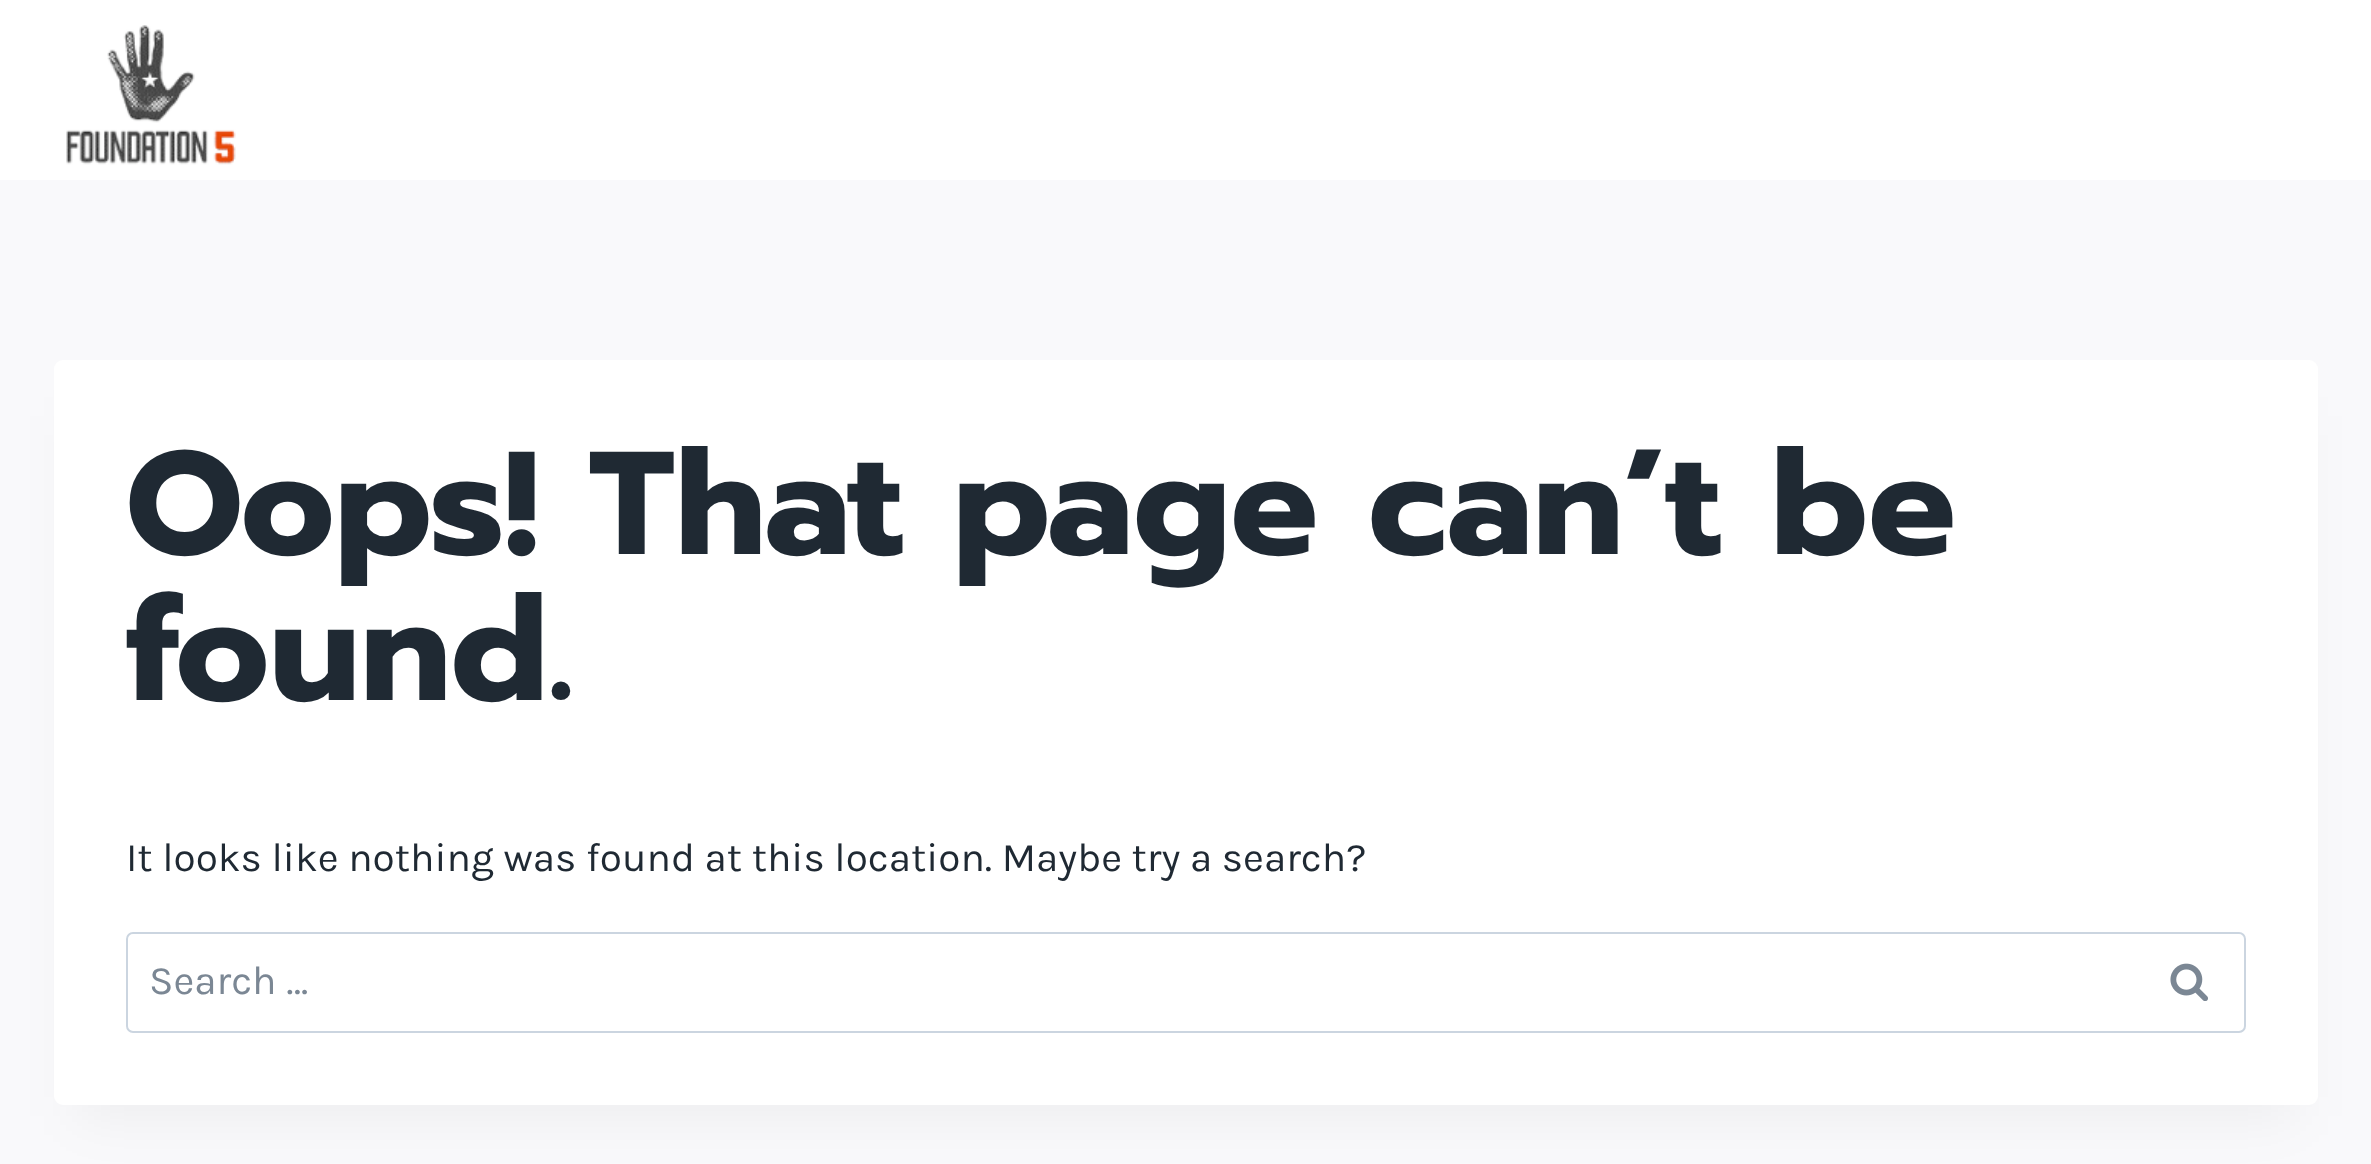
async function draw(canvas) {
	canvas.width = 2371;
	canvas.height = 1164;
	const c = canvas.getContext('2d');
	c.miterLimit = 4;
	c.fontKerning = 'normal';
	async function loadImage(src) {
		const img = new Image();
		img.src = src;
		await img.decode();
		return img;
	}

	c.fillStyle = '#f9f9fb';
	c.fillRect(0, 0, 2371, 1164);
	c.fillStyle = '#fff';
	c.fillRect(0, 0, 2371, 180);
	c.drawImage(await loadImage('img1.png'), 66, 25, 170, 140);
	c.fillStyle = '#0000000d';
	c.filter = 'blur(28px)';
	c.beginPath();
	c.rect(77, 416, 2218, 700);
	c.fill();
	c.filter = 'none';
	c.fillStyle = '#fff';
	c.beginPath();
	c.roundRect(54, 360, 2264, 745, 9);
	c.fill();
	c.font = 'bold 146.25px Prompt';
	c.fillStyle = '#1f2933';
	c.fillText('Oops! That page can’t be', 126, 554);
	c.fillText('found.', 126, 700);
	c.font = '40.5px Karla';
	c.fillText('It looks like nothing was found at this location. Maybe try a search?', 126, 871);
	c.beginPath();
	c.roundRect(127, 933, 2118, 99, 6);
	c.strokeStyle = '#cbd5e0';
	c.lineWidth = 2;
	c.stroke();
	c.fillStyle = '#7b8794';
	c.fillText('Search …', 149, 994);
	c.drawImage(await loadImage('img2.png'), 2170, 963, 38, 38);
}

draw(document.querySelector('canvas'));
